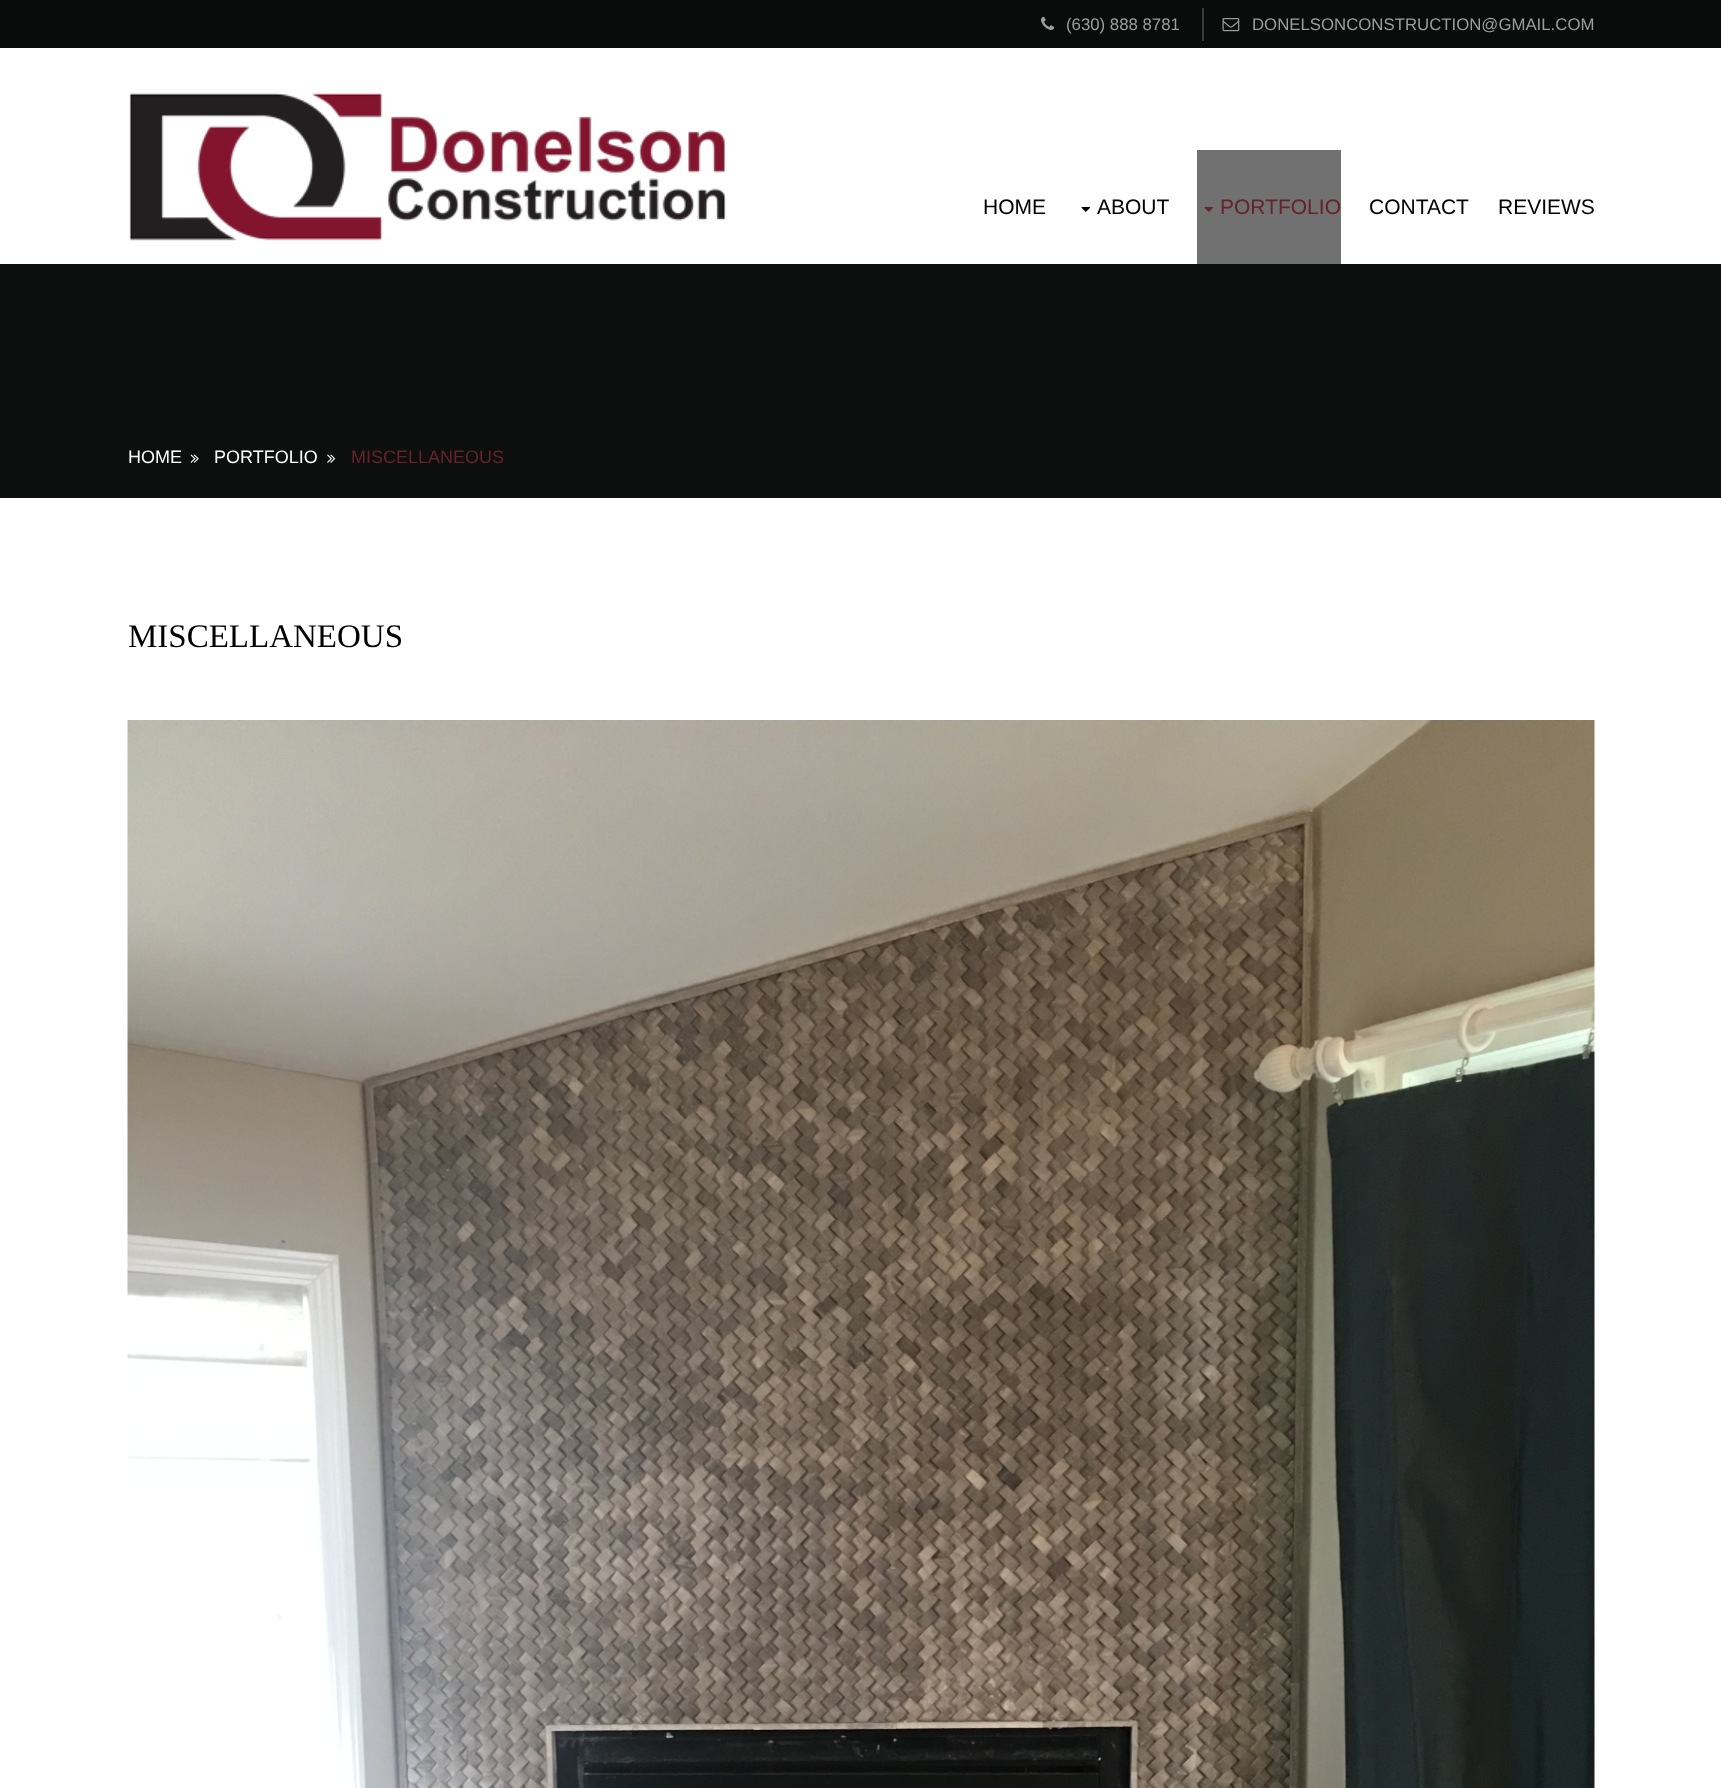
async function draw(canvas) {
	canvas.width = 1721;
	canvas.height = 1788;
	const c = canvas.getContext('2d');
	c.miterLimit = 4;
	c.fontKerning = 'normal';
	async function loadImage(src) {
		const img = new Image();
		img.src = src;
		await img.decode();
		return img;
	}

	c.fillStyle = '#fff';
	c.fillRect(0, 0, 1721, 1788);
	c.fillStyle = '#0a0b0b';
	c.fillRect(0, 0, 1721, 48);
	c.fillStyle = '#3b3c3c';
	c.fillRect(1202, 8, 2, 33);
	c.drawImage(await loadImage('img1.png'), 1041, 16, 14, 14);
	c.font = '16.8px Liberation Sans';
	c.fillStyle = '#9d9d9d';
	c.fillText('(630) 888 8781', 1066, 30);
	c.drawImage(await loadImage('img2.png'), 1222, 18, 18, 14);
	c.fillText('DONELSONCONSTRUCTION@GMAIL.COM', 1252, 30);
	c.drawImage(await loadImage('img3.png'), 129, 92, 598, 149);
	c.font = '21px Liberation Sans';
	c.fillStyle = '#000';
	c.fillText('HOME', 983, 214);
	c.drawImage(await loadImage('img4.png'), 1081, 207, 9, 5);
	c.fillText('ABOUT', 1097, 214);
	c.fillStyle = '#717171';
	c.fillRect(1197, 150, 144, 114);
	c.drawImage(await loadImage('img5.png'), 1204, 207, 9, 5);
	c.fillStyle = '#66222d';
	c.fillText('PORTFOLIO', 1220, 214);
	c.fillStyle = '#000';
	c.fillText('CONTACT', 1369, 214);
	c.fillText('REVIEWS', 1498, 214);
	c.fillStyle = '#0d0e0e';
	c.fillRect(0, 264, 1721, 234);
	c.font = '18px Liberation Sans';
	c.fillStyle = '#fff';
	c.fillText('HOME', 128, 463);
	c.drawImage(await loadImage('img6.png'), 190, 454, 9, 9);
	c.fillText('PORTFOLIO', 214, 463);
	c.drawImage(await loadImage('img7.png'), 327, 454, 9, 9);
	c.fillStyle = '#66222d';
	c.fillText('MISCELLANEOUS', 351, 463);
	c.font = '33px Liberation Serif';
	c.fillStyle = '#000';
	c.fillText('MISCELLANEOUS', 128, 647);
	c.drawImage(await loadImage('img8.png'), 127, 720, 1468, 1068);
}

draw(document.querySelector('canvas'));
